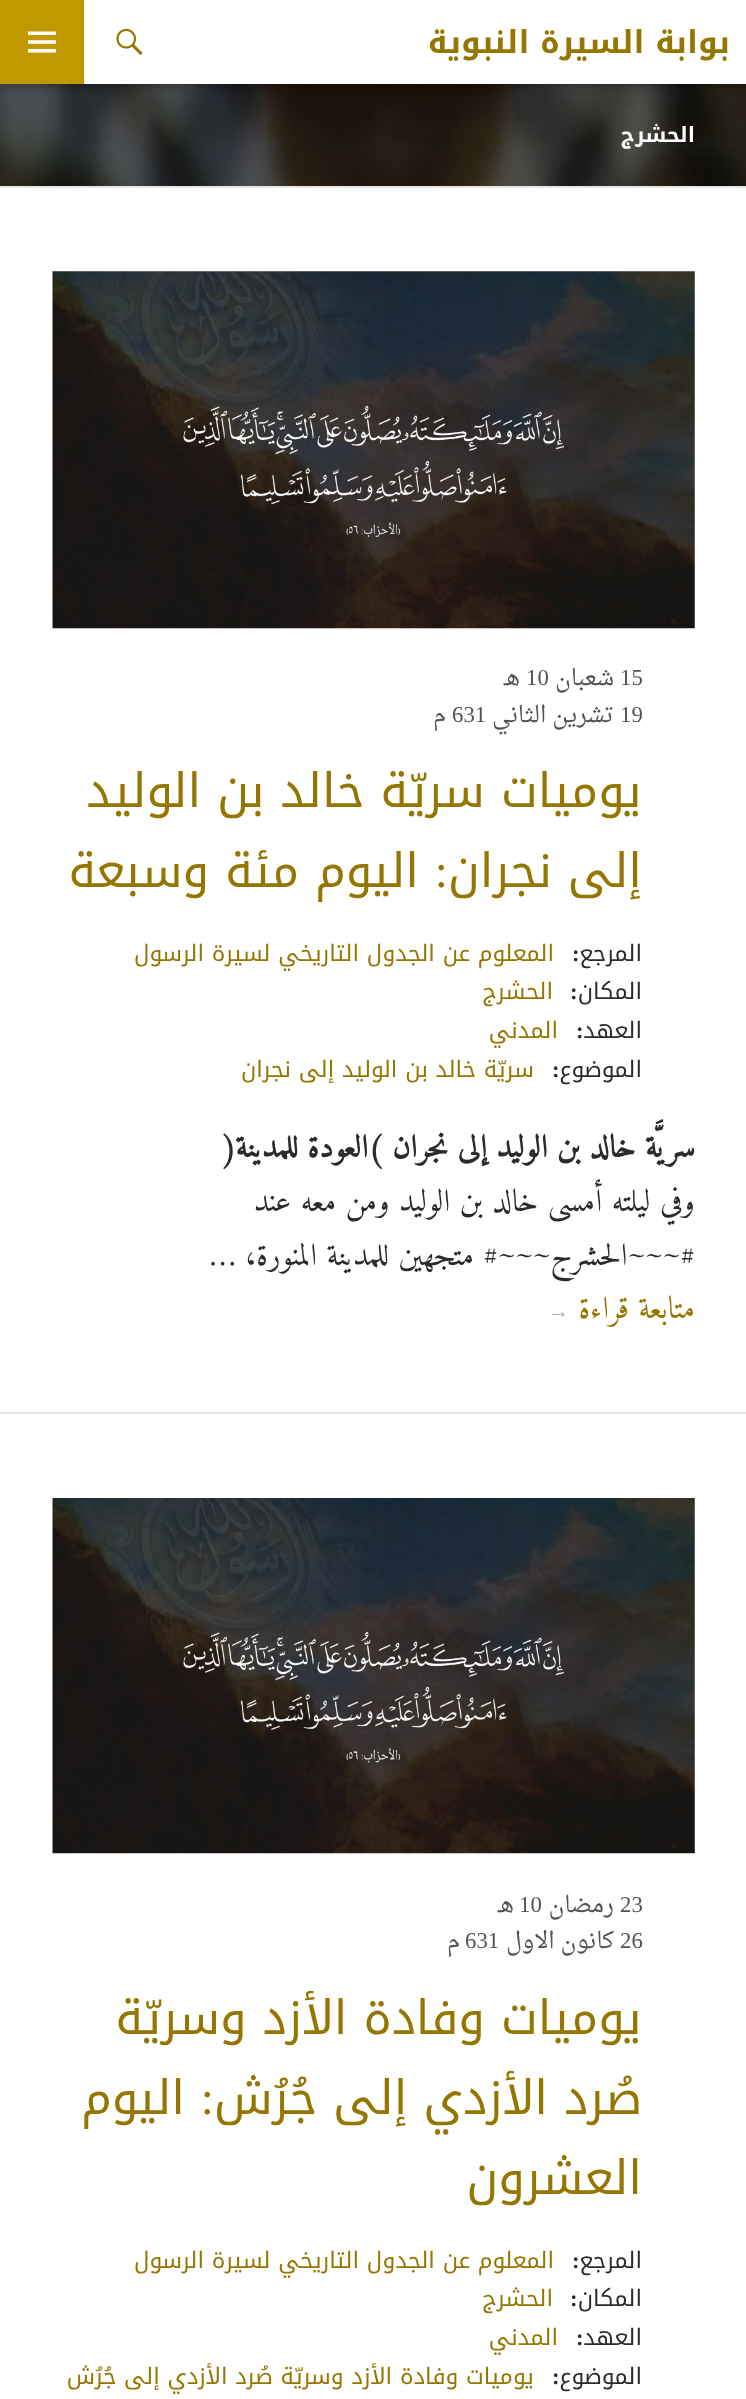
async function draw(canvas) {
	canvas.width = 746;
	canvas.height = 2399;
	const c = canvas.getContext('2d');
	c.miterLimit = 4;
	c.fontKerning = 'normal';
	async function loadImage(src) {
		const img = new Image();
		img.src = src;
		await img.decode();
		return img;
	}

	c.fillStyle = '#fff';
	c.fillRect(0, 0, 746, 2399);
	c.drawImage(await loadImage('img5.png'), 0, 84, 746, 102);
	c.fillStyle = '#0000004d';
	c.filter = 'blur(4.5px)';
	c.beginPath();
	c.rect(0, 2, 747, 84);
	c.fill();
	c.filter = 'none';
	c.fillStyle = '#fff';
	c.fillRect(84, 0, 662, 84);
	c.direction = 'rtl';
	c.font = 'bold 31.5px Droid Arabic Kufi';
	c.fillStyle = '#947600';
	c.fillText('بوابة السيرة النبوية', 730, 53);
	c.drawImage(await loadImage('img1.png'), 116, 28, 27, 27);
	c.fillStyle = '#c09900';
	c.fillRect(0, 0, 84, 84);
	c.drawImage(await loadImage('img2.png'), 28, 31, 28, 22);
	c.font = 'bold 21px Droid Arabic Kufi';
	c.fillStyle = '#fff';
	c.fillText('الحشرج', 695, 142);
	c.fillStyle = '#e6e6e6';
	c.fillRect(0, 186, 746, 2);
	c.drawImage(await loadImage('img3.png'), 52, 271, 643, 358);
	c.direction = 'ltr';
	c.font = '22.75px Liberation Serif';
	c.fillStyle = '#535353';
	c.fillText('15', 620, 685);
	c.direction = 'rtl';
	c.font = '22.75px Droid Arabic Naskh';
	c.fillText('شعبان', 614, 685);
	c.direction = 'ltr';
	c.font = '22.75px Liberation Serif';
	c.fillText('10', 526, 685);
	c.direction = 'rtl';
	c.font = '22.75px Droid Arabic Naskh';
	c.fillText('هـ', 520, 685);
	c.direction = 'ltr';
	c.font = '22.75px Liberation Serif';
	c.fillText('19', 620, 722);
	c.direction = 'rtl';
	c.font = '22.75px Droid Arabic Naskh';
	c.fillText('تشرين الثاني', 614, 722);
	c.direction = 'ltr';
	c.font = '22.75px Liberation Serif';
	c.fillText('631', 452, 722);
	c.direction = 'rtl';
	c.font = '22.75px Droid Arabic Naskh';
	c.fillText('م', 446, 722);
	c.font = '47.25px Droid Arabic Kufi';
	c.fillStyle = '#947600';
	c.fillText('يوميات سريّة خالد بن الوليد', 642, 807);
	c.fillText('إلى نجران', 642, 887);
	c.font = '47.25px Liberation Serif';
	c.fillText(':', 448, 887);
	c.font = '47.25px Droid Arabic Kufi';
	c.fillText('اليوم مئة وسبعة', 419, 887);
	c.font = '22.75px Droid Arabic Kufi';
	c.fillStyle = '#2b2b2b';
	c.fillText('المرجع', 642, 961);
	c.direction = 'ltr';
	c.font = 'bold 22.75px Liberation Serif';
	c.fillText(':', 572, 961);
	c.direction = 'rtl';
	c.font = '22.75px Droid Arabic Kufi';
	c.fillStyle = '#947600';
	c.fillText('المعلوم عن الجدول التاريخي لسيرة الرسول', 554, 961);
	c.fillStyle = '#2b2b2b';
	c.fillText('المكان', 642, 999);
	c.direction = 'ltr';
	c.font = 'bold 22.75px Liberation Serif';
	c.fillText(':', 570, 999);
	c.direction = 'rtl';
	c.font = '22.75px Droid Arabic Kufi';
	c.fillStyle = '#947600';
	c.fillText('الحشرج', 553, 999);
	c.fillStyle = '#2b2b2b';
	c.fillText('العهد', 642, 1038);
	c.direction = 'ltr';
	c.font = 'bold 22.75px Liberation Serif';
	c.fillText(':', 576, 1038);
	c.direction = 'rtl';
	c.font = '22.75px Droid Arabic Kufi';
	c.fillStyle = '#947600';
	c.fillText('المدني', 558, 1038);
	c.fillStyle = '#2b2b2b';
	c.fillText('الموضوع', 642, 1077);
	c.direction = 'ltr';
	c.font = 'bold 22.75px Liberation Serif';
	c.fillText(':', 552, 1077);
	c.direction = 'rtl';
	c.font = '22.75px Droid Arabic Kufi';
	c.fillStyle = '#947600';
	c.fillText('سريّة خالد بن الوليد إلى نجران', 534, 1077);
	c.font = 'bold 31.5px Amiri';
	c.fillStyle = '#2b2b2b';
	c.fillText('سريَّة خالد بن الوليد إلى نجران', 695, 1157);
	c.direction = 'ltr';
	c.fillText('(', 368, 1157);
	c.direction = 'rtl';
	c.fillText('العودة للمدينة', 368, 1157);
	c.direction = 'ltr';
	c.fillText(')', 222, 1157);
	c.direction = 'rtl';
	c.font = '31.5px Amiri';
	c.fillText('وفي ليلته أمسى خالد بن الوليد ومن معه عند', 695, 1211);
	c.fillText('#~~~الحشرج~~~# متجهين للمدينة المنورة، …', 695, 1265);
	c.fillStyle = '#947600';
	c.fillText('متابعة قراءة', 695, 1318);
	c.direction = 'ltr';
	c.font = 'bold 21px Liberation Serif';
	c.fillStyle = '#afafaf';
	c.fillText('→', 548, 1318);
	c.fillStyle = '#e6e6e6';
	c.fillRect(0, 1412, 746, 2);
	c.drawImage(await loadImage('img4.png'), 52, 1498, 643, 356);
	c.font = '22.75px Liberation Serif';
	c.fillStyle = '#535353';
	c.fillText('23', 620, 1912);
	c.direction = 'rtl';
	c.font = '22.75px Droid Arabic Naskh';
	c.fillText('رمضان', 614, 1912);
	c.direction = 'ltr';
	c.font = '22.75px Liberation Serif';
	c.fillText('10', 519, 1912);
	c.direction = 'rtl';
	c.font = '22.75px Droid Arabic Naskh';
	c.fillText('هـ', 514, 1912);
	c.direction = 'ltr';
	c.font = '22.75px Liberation Serif';
	c.fillText('26', 620, 1948);
	c.direction = 'rtl';
	c.font = '22.75px Droid Arabic Naskh';
	c.fillText('كانون الاول', 614, 1948);
	c.direction = 'ltr';
	c.font = '22.75px Liberation Serif';
	c.fillText('631', 465, 1948);
	c.direction = 'rtl';
	c.font = '22.75px Droid Arabic Naskh';
	c.fillText('م', 460, 1948);
	c.font = '47.25px Droid Arabic Kufi';
	c.fillStyle = '#947600';
	c.fillText('يوميات وفادة الأزد وسريّة', 642, 2034);
	c.fillText('صُرد الأزدي إلى جُرُش', 642, 2114);
	c.font = '47.25px Liberation Serif';
	c.fillText(':', 214, 2114);
	c.font = '47.25px Droid Arabic Kufi';
	c.fillText('اليوم', 185, 2114);
	c.fillText('العشرون', 642, 2194);
	c.font = '22.75px Droid Arabic Kufi';
	c.fillStyle = '#2b2b2b';
	c.fillText('المرجع', 642, 2268);
	c.direction = 'ltr';
	c.font = 'bold 22.75px Liberation Serif';
	c.fillText(':', 572, 2268);
	c.direction = 'rtl';
	c.font = '22.75px Droid Arabic Kufi';
	c.fillStyle = '#947600';
	c.fillText('المعلوم عن الجدول التاريخي لسيرة الرسول', 554, 2268);
	c.fillStyle = '#2b2b2b';
	c.fillText('المكان', 642, 2306);
	c.direction = 'ltr';
	c.font = 'bold 22.75px Liberation Serif';
	c.fillText(':', 570, 2306);
	c.direction = 'rtl';
	c.font = '22.75px Droid Arabic Kufi';
	c.fillStyle = '#947600';
	c.fillText('الحشرج', 553, 2306);
	c.fillStyle = '#2b2b2b';
	c.fillText('العهد', 642, 2345);
	c.direction = 'ltr';
	c.font = 'bold 22.75px Liberation Serif';
	c.fillText(':', 576, 2345);
	c.direction = 'rtl';
	c.font = '22.75px Droid Arabic Kufi';
	c.fillStyle = '#947600';
	c.fillText('المدني', 558, 2345);
	c.fillStyle = '#2b2b2b';
	c.fillText('الموضوع', 642, 2384);
	c.direction = 'ltr';
	c.font = 'bold 22.75px Liberation Serif';
	c.fillText(':', 552, 2384);
	c.direction = 'rtl';
	c.font = '22.75px Droid Arabic Kufi';
	c.fillStyle = '#947600';
	c.fillText('يوميات وفادة الأزد وسريّة صُرد الأزدي إلى جُرُش', 534, 2384);
}

draw(document.querySelector('canvas'));
